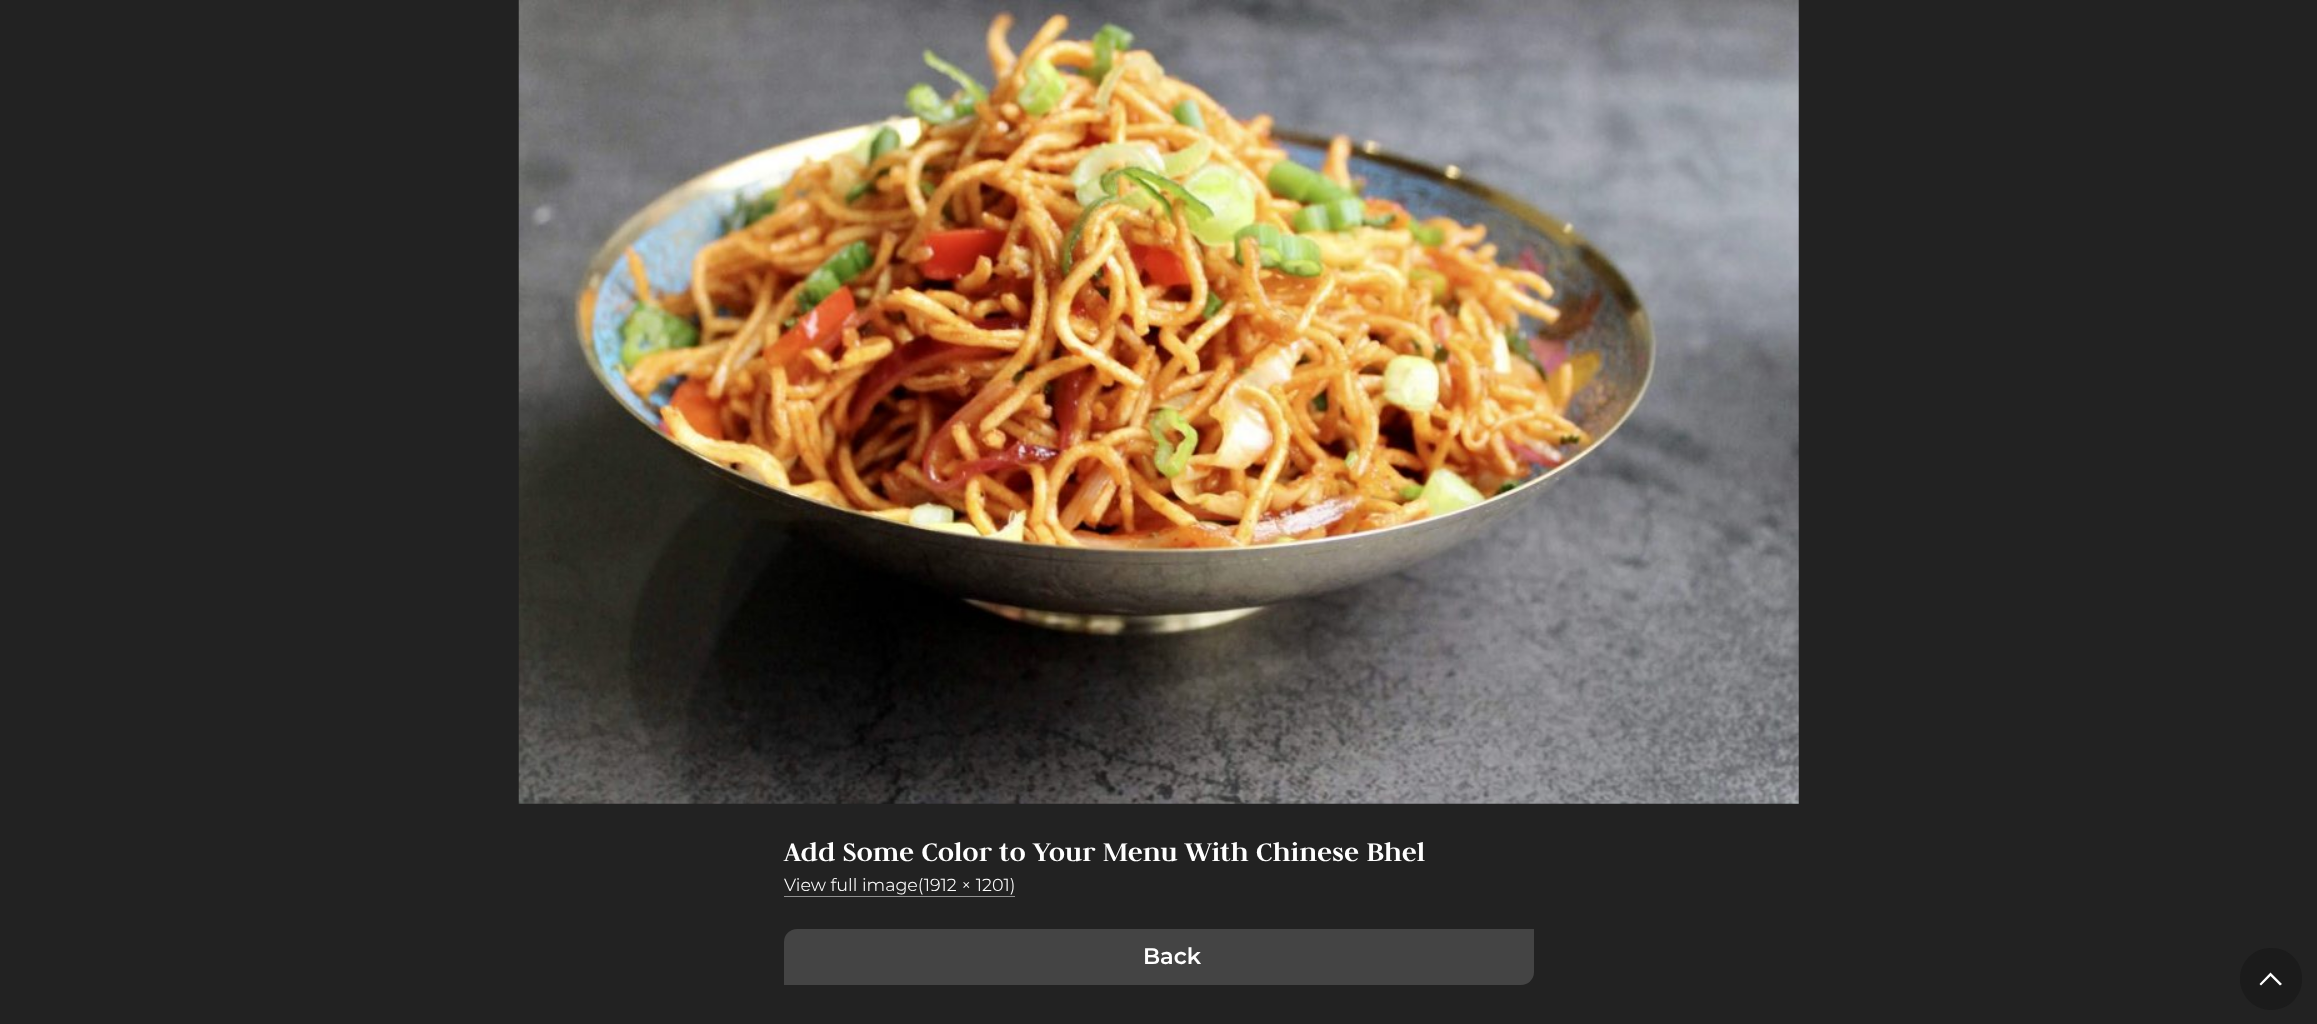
async function draw(canvas) {
	canvas.width = 2317;
	canvas.height = 1024;
	const c = canvas.getContext('2d');
	c.miterLimit = 4;
	c.fontKerning = 'normal';
	async function loadImage(src) {
		const img = new Image();
		img.src = src;
		await img.decode();
		return img;
	}

	c.fillStyle = '#222';
	c.fillRect(0, 0, 2317, 1024);
	c.drawImage(await loadImage('img1.png'), 518, 0, 1281, 804);
	c.font = 'bold 30px Judson';
	c.fillStyle = '#fff';
	c.fillText('Add Some Color to Your Menu With Chinese Bhel', 784, 861);
	c.font = '300 17.5px Montserrat';
	c.fillText('View full image(1912 × 1201)', 784, 891);
	c.fillStyle = '#919191';
	c.fillRect(784, 896, 231, 1);
	c.fillStyle = '#444';
	c.beginPath();
	c.roundRect(784, 929, 750, 56, [13, 0, 13, 0]);
	c.fill();
	c.font = '600 22.5px Montserrat';
	c.fillStyle = '#fff';
	c.fillText('Back', 1143, 964);
	c.fillStyle = '#1b1b1b';
	c.beginPath();
	c.moveTo(2302, 979);
	c.bezierCurveTo(2302, 996, 2289, 1010, 2271, 1010);
	c.bezierCurveTo(2254, 1010, 2240, 996, 2240, 979);
	c.bezierCurveTo(2240, 961, 2254, 948, 2271, 948);
	c.bezierCurveTo(2289, 948, 2302, 961, 2302, 979);
	c.closePath();
	c.fill();
	c.fillStyle = '#fff';
	c.beginPath();
	c.moveTo(2282, 984);
	c.lineTo(2280, 985.5);
	c.lineTo(2270.5, 976);
	c.lineTo(2261, 985.5);
	c.lineTo(2259.5, 984);
	c.lineTo(2270.5, 972.5);
	c.closePath();
	c.fill();
}

draw(document.querySelector('canvas'));
